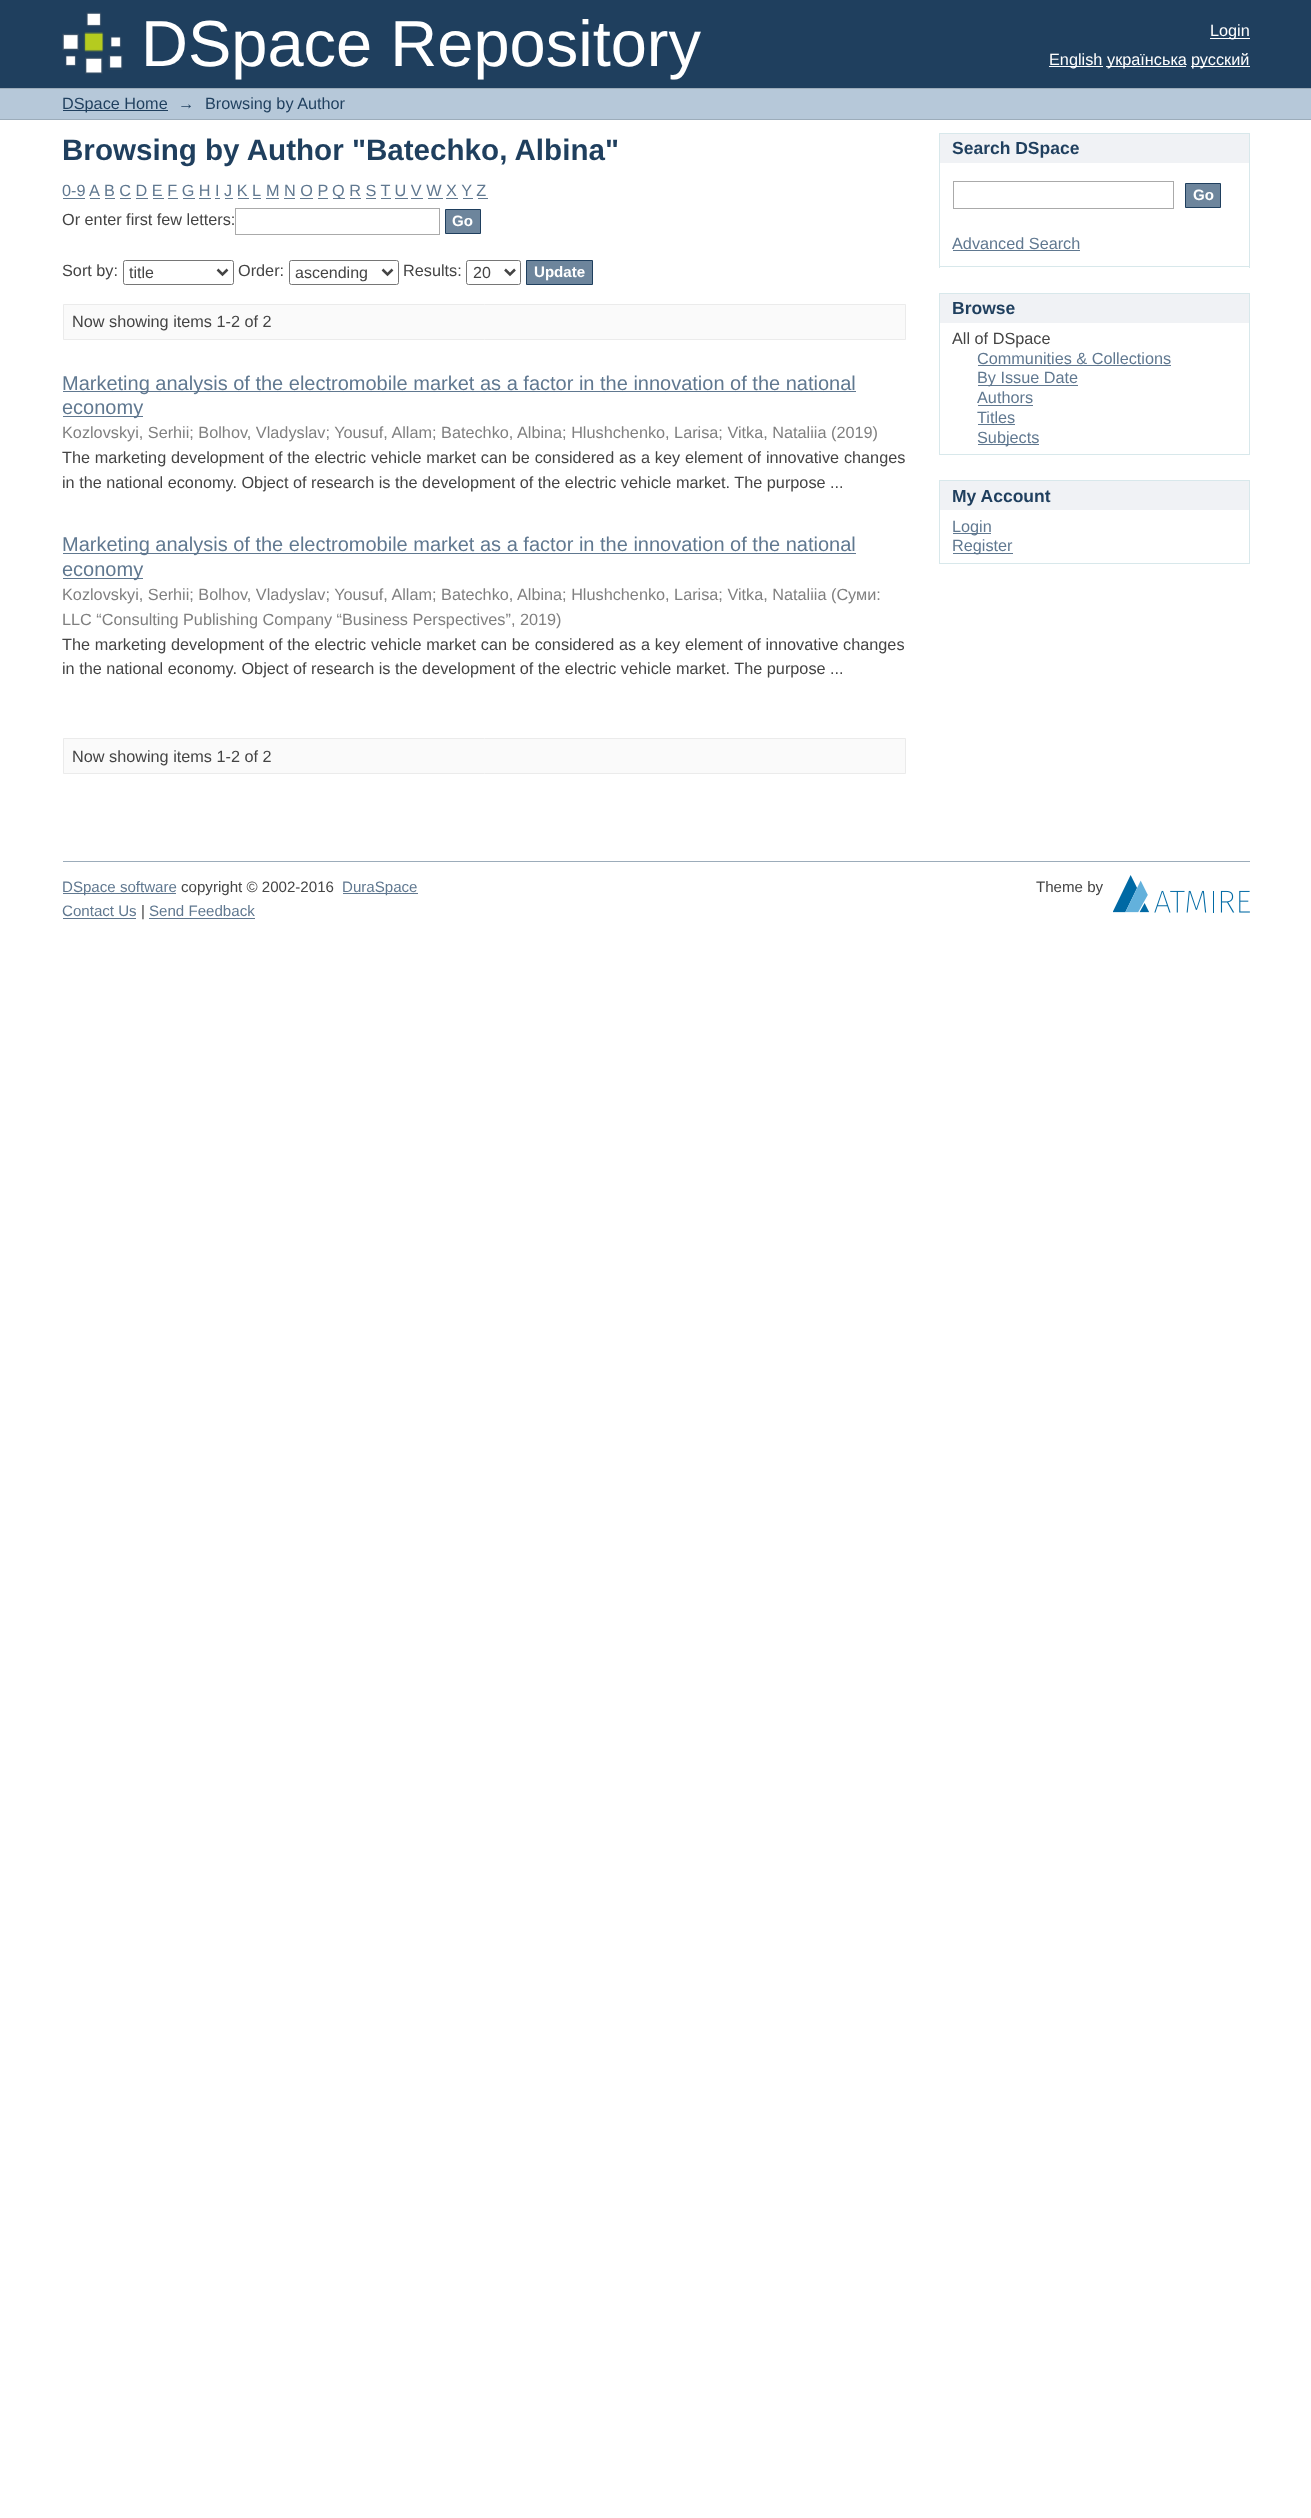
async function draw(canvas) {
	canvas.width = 1311;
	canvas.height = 2518;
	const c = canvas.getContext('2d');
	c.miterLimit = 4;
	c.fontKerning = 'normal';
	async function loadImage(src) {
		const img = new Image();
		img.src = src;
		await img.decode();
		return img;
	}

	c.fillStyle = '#fff';
	c.fillRect(0, 0, 1311, 2518);
	c.fillStyle = '#1f3f5e';
	c.fillRect(0, 0, 1311, 88);
	c.drawImage(await loadImage('img1.png'), 62, 12, 61, 62);
	c.font = '65px Liberation Sans';
	c.fillStyle = '#fff';
	c.fillText('DSpace Repository', 141, 66);
	c.fillRect(1210, 38, 40, 1);
	c.font = '16.25px Liberation Sans';
	c.fillText('Login', 1210, 36);
	c.fillRect(1049, 66, 54, 1);
	c.fillText('English', 1049, 65);
	c.fillRect(1106, 66, 80, 1);
	c.fillText('українська', 1107, 65);
	c.fillRect(1191, 66, 59, 1);
	c.fillText('русский', 1191, 65);
	for (const [x, y, w, h, color] of [
		[0, 89, 1311, 30, '#b6c8d9'],
		[0, 88, 1311, 1, '#9cacba'],
		[0, 119, 1311, 1, '#9cacba'],
		[63, 110, 105, 1, '#1f3f5e'],
	]) {
		c.fillStyle = color;
		c.fillRect(x, y, w, h);
	}
	for (const [text, x, y] of [
		['DSpace Home', 62, 109],
		['→', 178, 109],
		['Browsing by Author', 205, 109],
	]) {
		c.fillText(text, x, y);
	}
	c.font = 'bold 29.6px Liberation Sans';
	c.fillText('Browsing by Author "Batechko, Albina"', 62, 160);
	c.font = '16.25px Liberation Sans';
	c.fillStyle = '#607890';
	c.fillText('0-9 A', 62, 196);
	c.fillRect(63, 198, 22, 1);
	c.fillText('B C D E F G H I J K L', 104, 196);
	c.fillRect(105, 198, 10, 1);
	c.fillText('M N O P', 266, 196);
	c.fillRect(266, 198, 13, 1);
	c.fillRect(333, 198, 12, 1);
	c.fillText('Q R S T U V W X Y Z', 332, 196);
	for (const [x, y, w, h, color] of [
		[90, 198, 10, 1, '#607890'],
		[120, 198, 11, 1, '#607890'],
		[136, 198, 12, 1, '#607890'],
		[153, 198, 11, 1, '#607890'],
		[168, 198, 10, 1, '#607890'],
		[183, 198, 12, 1, '#607890'],
		[199, 198, 12, 1, '#607890'],
		[215, 198, 5, 1, '#607890'],
		[225, 198, 8, 1, '#607890'],
		[238, 198, 11, 1, '#607890'],
		[253, 198, 8, 1, '#607890'],
		[284, 198, 11, 1, '#607890'],
		[300, 198, 13, 1, '#607890'],
		[318, 198, 10, 1, '#607890'],
		[350, 198, 11, 1, '#607890'],
		[366, 198, 10, 1, '#607890'],
		[381, 198, 10, 1, '#607890'],
		[395, 198, 13, 1, '#607890'],
		[411, 198, 12, 1, '#607890'],
		[428, 198, 15, 1, '#607890'],
		[446, 198, 12, 1, '#607890'],
		[463, 198, 10, 1, '#607890'],
		[478, 198, 10, 1, '#607890'],
	]) {
		c.fillStyle = color;
		c.fillRect(x, y, w, h);
	}
	c.fillStyle = '#444';
	c.fillText('Or enter first few letters:', 62, 225);
	c.strokeStyle = '#aaa';
	c.strokeRect(235.5, 208.5, 204, 26);
	c.fillStyle = '#6d859c';
	c.beginPath();
	c.rect(445.5, 209.5, 35, 24);
	c.fill();
	c.strokeStyle = '#1f3f5e';
	c.stroke();
	c.font = 'bold 15.1px Liberation Sans';
	c.fillStyle = '#fff';
	c.fillText('Go', 452, 226);
	c.font = '16.25px Liberation Sans';
	c.fillStyle = '#444';
	c.fillText('Sort by:', 62, 276);
	c.beginPath();
	c.roundRect(123.5, 260.5, 110, 24, 2);
	c.strokeStyle = '#767676';
	c.stroke();
	c.beginPath();
	c.moveTo(217.5, 269.5);
	c.lineTo(222.5, 274.5);
	c.lineTo(227.5, 269.5);
	c.strokeStyle = '#444';
	c.lineWidth = 2.5;
	c.stroke();
	c.font = '16px Liberation Sans';
	c.fillText('title', 129, 278);
	c.font = '16.25px Liberation Sans';
	c.fillText('Order:', 238, 276);
	c.beginPath();
	c.roundRect(289.5, 260.5, 109, 24, 2);
	c.strokeStyle = '#767676';
	c.lineWidth = 1;
	c.stroke();
	c.beginPath();
	c.moveTo(382.5, 269.5);
	c.lineTo(387.5, 274.5);
	c.lineTo(392.5, 269.5);
	c.strokeStyle = '#444';
	c.lineWidth = 2.5;
	c.stroke();
	c.font = '16px Liberation Sans';
	c.fillText('ascending', 295, 278);
	c.font = '16.25px Liberation Sans';
	c.fillText('Results:', 403, 276);
	c.beginPath();
	c.roundRect(466.5, 260.5, 54, 24, 2);
	c.strokeStyle = '#767676';
	c.lineWidth = 1;
	c.stroke();
	c.beginPath();
	c.moveTo(505, 269.5);
	c.lineTo(510, 274.5);
	c.lineTo(515, 269.5);
	c.strokeStyle = '#444';
	c.lineWidth = 2.5;
	c.stroke();
	c.font = '16px Liberation Sans';
	c.fillText('20', 473, 278);
	c.fillStyle = '#6d859c';
	c.beginPath();
	c.rect(526.5, 260.5, 66, 24);
	c.fill();
	c.strokeStyle = '#1f3f5e';
	c.lineWidth = 1;
	c.stroke();
	c.font = 'bold 15.1px Liberation Sans';
	c.fillStyle = '#fff';
	c.fillText('Update', 534, 277);
	c.fillStyle = '#fafafa';
	c.beginPath();
	c.rect(63.5, 304.5, 842, 35);
	c.fill();
	c.strokeStyle = '#ebebeb';
	c.stroke();
	c.font = '16.25px Liberation Sans';
	c.fillStyle = '#444';
	c.fillText('Now showing items 1-2 of 2', 72, 327);
	c.fillStyle = '#607890';
	c.fillRect(63, 391, 793, 1);
	c.font = '20px Liberation Sans';
	c.fillText('Marketing analysis of the electromobile market as a factor in the innovation of the national', 62, 390);
	c.fillRect(63, 416, 80, 1);
	c.fillText('economy', 62, 414);
	c.font = '16.25px Liberation Sans';
	c.fillStyle = '#808080';
	c.fillText('Kozlovskyi, Serhii; Bolhov, Vladyslav; Yousuf, Allam; Batechko, Albina; Hlushchenko, Larisa; Vitka, Nataliia (2019)', 62, 438);
	c.wordSpacing = '0.3px';
	c.fillStyle = '#444';
	c.fillText('The marketing development of the electric vehicle market can be considered as a key element of innovative changes', 62, 463);
	c.wordSpacing = '0px';
	c.fillText('in the national economy. Object of research is the development of the electric vehicle market. The purpose ...', 62, 488);
	c.fillStyle = '#607890';
	c.fillRect(63, 553, 793, 1);
	c.font = '20px Liberation Sans';
	c.fillText('Marketing analysis of the electromobile market as a factor in the innovation of the national', 62, 551);
	c.fillRect(63, 578, 80, 1);
	c.fillText('economy', 62, 576);
	c.font = '16.25px Liberation Sans';
	c.fillStyle = '#808080';
	c.fillText('Kozlovskyi, Serhii; Bolhov, Vladyslav; Yousuf, Allam; Batechko, Albina; Hlushchenko, Larisa; Vitka, Nataliia (Суми:', 62, 600);
	c.fillText('LLC “Consulting Publishing Company “Business Perspectives”, 2019)', 62, 625);
	c.wordSpacing = '0.3px';
	c.fillStyle = '#444';
	c.fillText('The marketing development of the electric vehicle market can be considered as a key', 62, 650);
	c.wordSpacing = '0px';
	c.fillText('element of innovative changes', 685, 650);
	c.fillText('in the national economy. Object of research is the development of the electric vehicle market. The purpose ...', 62, 674);
	c.fillStyle = '#fafafa';
	c.beginPath();
	c.rect(63.5, 738.5, 842, 35);
	c.fill();
	c.stroke();
	c.fillStyle = '#444';
	c.fillText('Now showing items 1-2 of 2', 72, 762);
	for (const [x, y, w, h, color] of [
		[940, 134, 309, 29, '#f0f2f5'],
		[939, 133, 311, 1, '#d8e8eb'],
		[1249, 133, 1, 135, '#d8e8eb'],
		[939, 133, 1, 30, '#d8e8eb'],
	]) {
		c.fillStyle = color;
		c.fillRect(x, y, w, h);
	}
	c.font = 'bold 17.5px Liberation Sans';
	c.fillStyle = '#1f3f5e';
	c.fillText('Search DSpace', 952, 154);
	c.fillStyle = '#d8e8eb';
	c.fillRect(939, 266, 311, 1);
	c.fillRect(939, 163, 1, 105);
	c.strokeStyle = '#aaa';
	c.strokeRect(953.5, 181.5, 220, 27);
	c.fillStyle = '#6d859c';
	c.beginPath();
	c.rect(1185.5, 183.5, 35, 24);
	c.fill();
	c.strokeStyle = '#1f3f5e';
	c.stroke();
	c.font = 'bold 15.1px Liberation Sans';
	c.fillStyle = '#fff';
	c.fillText('Go', 1193, 200);
	c.font = '16.25px Liberation Sans';
	c.fillStyle = '#607890';
	c.fillText('Advanced Search', 952, 249);
	for (const [x, y, w, h, color] of [
		[953, 250, 127, 1, '#607890'],
		[940, 294, 309, 29, '#f0f2f5'],
		[939, 293, 311, 1, '#d8e8eb'],
		[1249, 293, 1, 162, '#d8e8eb'],
		[939, 293, 1, 30, '#d8e8eb'],
	]) {
		c.fillStyle = color;
		c.fillRect(x, y, w, h);
	}
	c.font = 'bold 17.5px Liberation Sans';
	c.fillStyle = '#1f3f5e';
	c.fillText('Browse', 952, 314);
	c.fillStyle = '#d8e8eb';
	c.fillRect(939, 454, 311, 1);
	c.fillRect(939, 323, 1, 132);
	c.font = '16.25px Liberation Sans';
	c.fillStyle = '#444';
	c.fillText('All of DSpace', 952, 344);
	c.fillStyle = '#607890';
	c.fillText('Communities & Collections', 977, 364);
	c.fillRect(978, 365, 193, 1);
	c.fillRect(978, 385, 100, 1);
	c.fillText('By Issue Date', 977, 383);
	c.fillText('Authors', 977, 403);
	c.fillRect(978, 405, 55, 1);
	c.fillText('Titles', 977, 423);
	c.fillRect(978, 424, 37, 1);
	c.fillRect(978, 444, 61, 1);
	c.fillText('Subjects', 977, 443);
	for (const [x, y, w, h, color] of [
		[940, 481, 309, 29, '#f0f2f5'],
		[939, 480, 311, 1, '#d8e8eb'],
		[1249, 480, 1, 84, '#d8e8eb'],
		[939, 480, 1, 30, '#d8e8eb'],
	]) {
		c.fillStyle = color;
		c.fillRect(x, y, w, h);
	}
	c.font = 'bold 17.5px Liberation Sans';
	c.fillStyle = '#1f3f5e';
	c.fillText('My Account', 952, 502);
	for (const [x, y, w, h, color] of [
		[939, 563, 311, 1, '#d8e8eb'],
		[939, 510, 1, 54, '#d8e8eb'],
		[953, 533, 38, 1, '#607890'],
	]) {
		c.fillStyle = color;
		c.fillRect(x, y, w, h);
	}
	c.font = '16.25px Liberation Sans';
	c.fillText('Login', 952, 532);
	c.fillRect(953, 553, 60, 1);
	c.fillText('Register', 952, 551);
	c.fillStyle = '#9cacba';
	c.fillRect(63, 861, 1187, 1);
	c.fillStyle = '#607890';
	c.fillRect(63, 893, 113, 1);
	c.font = '15.1px Liberation Sans';
	c.fillText('DSpace software', 62, 892);
	c.fillStyle = '#444';
	c.fillText('copyright © 2002-2016', 181, 892);
	c.fillStyle = '#607890';
	c.fillRect(343, 893, 75, 1);
	c.fillText('DuraSpace', 342, 892);
	c.fillStyle = '#444';
	c.fillText('Theme by', 1036, 892);
	c.drawImage(await loadImage('img2.png'), 1113, 875, 137, 38);
	c.fillStyle = '#607890';
	c.fillText('Contact Us', 62, 916);
	c.fillRect(63, 918, 73, 1);
	c.fillStyle = '#444';
	c.fillText('|', 141, 916);
	c.fillStyle = '#607890';
	c.fillText('Send Feedback', 149, 916);
	c.fillRect(149, 918, 106, 1);
}

draw(document.querySelector('canvas'));
